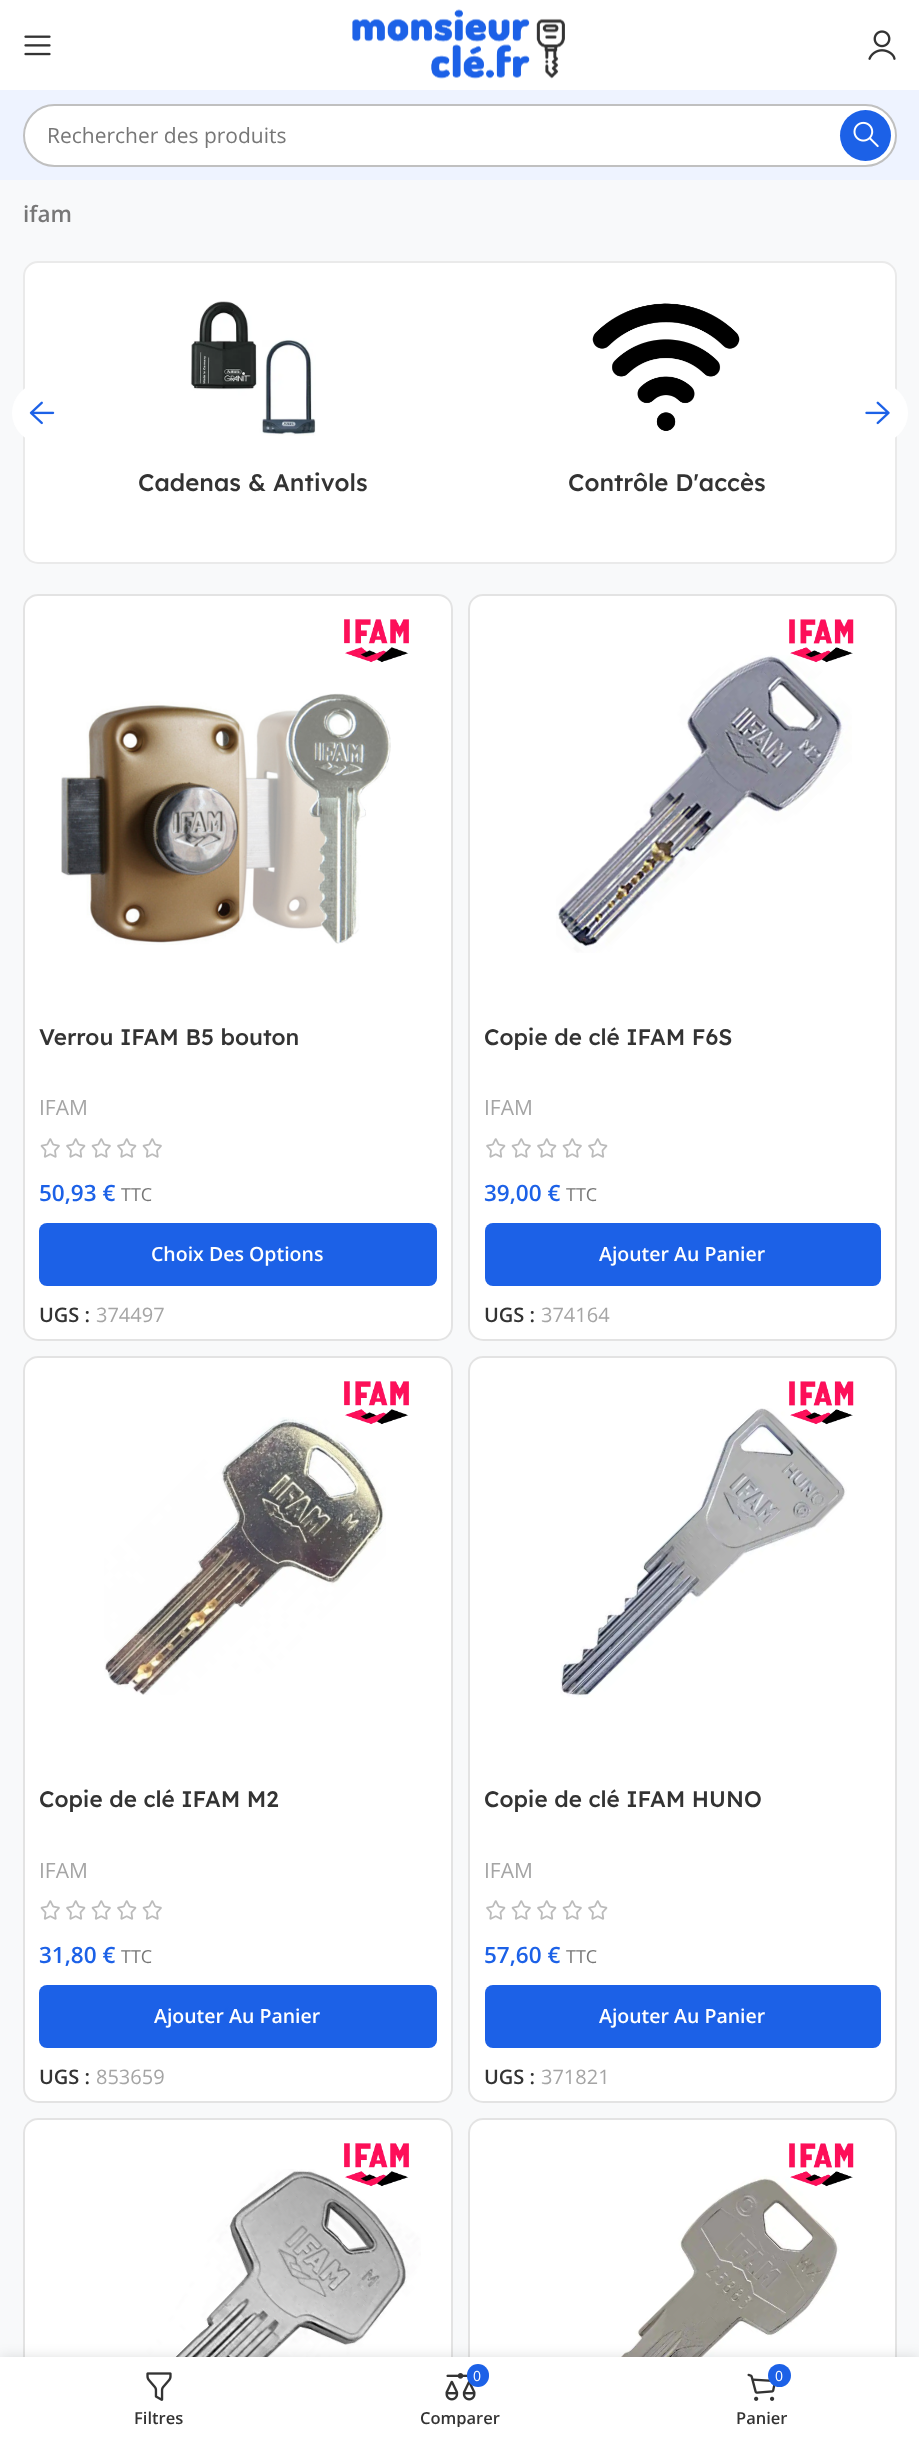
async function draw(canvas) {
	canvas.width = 919;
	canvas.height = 2438;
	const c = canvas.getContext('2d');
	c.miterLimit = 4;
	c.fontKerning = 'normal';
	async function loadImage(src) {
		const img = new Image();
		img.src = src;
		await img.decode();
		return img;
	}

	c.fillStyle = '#fff';
	c.fillRect(0, 0, 919, 2438);
	c.drawImage(await loadImage('img1.png'), 24, 35, 27, 21);
	c.drawImage(await loadImage('img2.png'), 352, 9, 213, 70);
	c.drawImage(await loadImage('img3.png'), 868, 30, 28, 30);
	c.fillStyle = '#eef3ff';
	c.fillRect(0, 90, 919, 90);
	c.fillStyle = '#fff';
	c.beginPath();
	c.roundRect(24, 105, 872, 61, 30.5);
	c.fill();
	c.strokeStyle = '#c0c0c0';
	c.lineWidth = 2;
	c.stroke();
	c.font = '21px Open Sans';
	c.fillStyle = '#777';
	c.fillText('Rechercher des produits', 47, 143);
	c.fillStyle = '#1c61e7';
	c.beginPath();
	c.arc(865.5, 135.5, 25.5, 0, 2 * Math.PI);
	c.fill();
	c.drawImage(await loadImage('img4.png'), 853, 121, 26, 27);
	c.fillStyle = '#f8f9fa';
	c.fillRect(0, 180, 919, 2177);
	c.font = '600 22.5px Open Sans';
	c.fillStyle = '#777';
	c.fillText('ifam', 23, 222);
	c.fillStyle = '#fff';
	c.beginPath();
	c.roundRect(24, 262, 872, 301, 14);
	c.fill();
	c.strokeStyle = '#eaeaea';
	c.stroke();
	c.beginPath();
	c.arc(42, 413, 30, 0, 2 * Math.PI);
	c.fill();
	c.drawImage(await loadImage('img5.png'), 29, 401, 26, 24);
	c.beginPath();
	c.arc(878, 413, 30, 0, 2 * Math.PI);
	c.fill();
	c.drawImage(await loadImage('img6.png'), 865, 401, 25, 24);
	c.drawImage(await loadImage('img7.png'), 190, 301, 126, 135);
	c.font = '500 24px Lexend Deca';
	c.fillStyle = '#333';
	c.fillText('Cadenas & Antivols', 138, 491);
	c.drawImage(await loadImage('img8.png'), 592, 303, 148, 128);
	c.fillText('Contrôle D\'accès', 568, 491);
	c.fillStyle = '#fff';
	c.beginPath();
	c.roundRect(23, 594, 430, 747, 15);
	c.fill();
	c.beginPath();
	c.roundRect(24, 595, 428, 745, 14);
	c.strokeStyle = '#0000001c';
	c.stroke();
	c.drawImage(await loadImage('img9.png'), 344, 619, 65, 44);
	c.drawImage(await loadImage('img10.png'), 61, 693, 330, 252);
	c.font = '500 22.5px Lexend Deca';
	c.fillStyle = '#333';
	c.fillText('Verrou IFAM B5 bouton', 39, 1045);
	c.font = '21px Open Sans';
	c.fillStyle = '#a5a5a5';
	c.fillText('IFAM', 39, 1115);
	c.drawImage(await loadImage('img11.png'), 40, 1138, 122, 20);
	c.font = '600 22.5px Open Sans';
	c.fillStyle = '#1c61e7';
	c.fillText('50,93 €', 39, 1201);
	c.font = '18px Open Sans';
	c.fillStyle = '#777';
	c.fillText('TTC', 121, 1201);
	c.fillStyle = '#1c61e7';
	c.beginPath();
	c.roundRect(39, 1223, 398, 63, 8);
	c.fill();
	c.font = '600 19.5px Open Sans';
	c.fillStyle = '#fff';
	c.fillText('Choix Des Options', 151, 1261);
	c.font = '600 20px Open Sans';
	c.fillStyle = '#333';
	c.fillText('UGS :', 39, 1322);
	c.font = '20px Open Sans';
	c.fillStyle = '#a5a5a5';
	c.fillText('374497', 96, 1322);
	c.fillStyle = '#fff';
	c.beginPath();
	c.roundRect(468, 594, 429, 747, 15);
	c.fill();
	c.beginPath();
	c.roundRect(469, 595, 427, 745, 14);
	c.stroke();
	c.drawImage(await loadImage('img13.png'), 556, 655, 296, 298);
	c.drawImage(await loadImage('img12.png'), 789, 619, 65, 44);
	c.font = '500 22.5px Lexend Deca';
	c.fillStyle = '#333';
	c.fillText('Copie de clé IFAM F6S', 484, 1045);
	c.font = '21px Open Sans';
	c.fillStyle = '#a5a5a5';
	c.fillText('IFAM', 484, 1115);
	c.drawImage(await loadImage('img14.png'), 486, 1138, 122, 20);
	c.font = '600 22.5px Open Sans';
	c.fillStyle = '#1c61e7';
	c.fillText('39,00 €', 484, 1201);
	c.font = '18px Open Sans';
	c.fillStyle = '#777';
	c.fillText('TTC', 566, 1201);
	c.fillStyle = '#1c61e7';
	c.beginPath();
	c.roundRect(485, 1223, 396, 63, 8);
	c.fill();
	c.font = '600 19.5px Open Sans';
	c.fillStyle = '#fff';
	c.fillText('Ajouter Au Panier', 599, 1261);
	c.font = '600 20px Open Sans';
	c.fillStyle = '#333';
	c.fillText('UGS :', 484, 1322);
	c.font = '20px Open Sans';
	c.fillStyle = '#a5a5a5';
	c.fillText('374164', 541, 1322);
	c.fillStyle = '#fff';
	c.beginPath();
	c.roundRect(23, 1356, 430, 747, 15);
	c.fill();
	c.beginPath();
	c.roundRect(24, 1357, 428, 745, 14);
	c.stroke();
	c.drawImage(await loadImage('img15.png'), 104, 1417, 282, 278);
	c.drawImage(await loadImage('img9.png'), 344, 1381, 65, 44);
	c.font = '500 22.5px Lexend Deca';
	c.fillStyle = '#333';
	c.fillText('Copie de clé IFAM M2', 39, 1807);
	c.font = '21px Open Sans';
	c.fillStyle = '#a5a5a5';
	c.fillText('IFAM', 39, 1878);
	c.drawImage(await loadImage('img11.png'), 40, 1900, 122, 20);
	c.font = '600 22.5px Open Sans';
	c.fillStyle = '#1c61e7';
	c.fillText('31,80 €', 39, 1963);
	c.font = '18px Open Sans';
	c.fillStyle = '#777';
	c.fillText('TTC', 121, 1963);
	c.fillStyle = '#1c61e7';
	c.beginPath();
	c.roundRect(39, 1985, 398, 63, 8);
	c.fill();
	c.font = '600 19.5px Open Sans';
	c.fillStyle = '#fff';
	c.fillText('Ajouter Au Panier', 154, 2023);
	c.beginPath();
	c.moveTo(228, 2025);
	c.bezierCurveTo(223, 2020, 223, 2012, 228, 2007);
	c.strokeStyle = '#1c61e7';
	c.lineWidth = 1.5;
	c.stroke();
	c.font = '600 20px Open Sans';
	c.fillStyle = '#333';
	c.fillText('UGS :', 39, 2084);
	c.font = '20px Open Sans';
	c.fillStyle = '#a5a5a5';
	c.fillText('853659', 96, 2084);
	c.fillStyle = '#fff';
	c.beginPath();
	c.roundRect(468, 1356, 429, 747, 15);
	c.fill();
	c.beginPath();
	c.roundRect(469, 1357, 427, 745, 14);
	c.strokeStyle = '#0000001c';
	c.lineWidth = 2;
	c.stroke();
	c.drawImage(await loadImage('img17.png'), 560, 1408, 287, 290);
	c.drawImage(await loadImage('img16.png'), 789, 1381, 65, 44);
	c.font = '500 22.5px Lexend Deca';
	c.fillStyle = '#333';
	c.fillText('Copie de clé IFAM HUNO', 484, 1807);
	c.font = '21px Open Sans';
	c.fillStyle = '#a5a5a5';
	c.fillText('IFAM', 484, 1878);
	c.drawImage(await loadImage('img14.png'), 486, 1900, 122, 20);
	c.font = '600 22.5px Open Sans';
	c.fillStyle = '#1c61e7';
	c.fillText('57,60 €', 484, 1963);
	c.font = '18px Open Sans';
	c.fillStyle = '#777';
	c.fillText('TTC', 566, 1963);
	c.fillStyle = '#1c61e7';
	c.beginPath();
	c.roundRect(485, 1985, 396, 63, 8);
	c.fill();
	c.font = '600 19.5px Open Sans';
	c.fillStyle = '#fff';
	c.fillText('Ajouter Au Panier', 599, 2023);
	c.font = '600 20px Open Sans';
	c.fillStyle = '#333';
	c.fillText('UGS :', 484, 2084);
	c.font = '20px Open Sans';
	c.fillStyle = '#a5a5a5';
	c.fillText('371821', 541, 2084);
	c.fillStyle = '#fff';
	c.beginPath();
	c.roundRect(23, 2118, 430, 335, 15);
	c.fill();
	c.beginPath();
	c.roundRect(24, 2119, 428, 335, 14);
	c.stroke();
	c.drawImage(await loadImage('img19.png'), 97, 2169, 324, 188);
	c.drawImage(await loadImage('img18.png'), 344, 2143, 65, 44);
	c.beginPath();
	c.roundRect(468, 2118, 429, 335, 15);
	c.fill();
	c.beginPath();
	c.roundRect(469, 2119, 427, 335, 14);
	c.stroke();
	c.drawImage(await loadImage('img21.png'), 543, 2176, 297, 181);
	c.drawImage(await loadImage('img20.png'), 789, 2143, 65, 44);
	c.fillStyle = '#0000001f';
	c.filter = 'blur(7px)';
	c.beginPath();
	c.rect(0, 2357, 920, 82);
	c.fill();
	c.filter = 'none';
	c.fillStyle = '#fff';
	c.fillRect(0, 2357, 919, 81);
	c.drawImage(await loadImage('img22.png'), 146, 2372, 26, 29);
	c.font = '600 16.5px Open Sans';
	c.fillStyle = '#333';
	c.fillText('Filtres', 134, 2424);
	c.drawImage(await loadImage('img23.png'), 445, 2373, 31, 28);
	c.fillStyle = '#1c61e7';
	c.beginPath();
	c.roundRect(467, 2364, 22, 23, 11);
	c.fill();
	c.font = '14px Open Sans';
	c.fillStyle = '#fff';
	c.fillText('0', 473, 2381);
	c.save();
	c.beginPath();
	c.rect(324, 2408, 272, 19);
	c.clip();
	c.font = '600 16.5px Open Sans';
	c.fillStyle = '#333';
	c.fillText('Comparer', 420, 2424);
	c.restore();
	c.drawImage(await loadImage('img24.png'), 747, 2373, 29, 28);
	c.fillStyle = '#1c61e7';
	c.beginPath();
	c.arc(779.5, 2375.5, 11.5, 0, 2 * Math.PI);
	c.fill();
	c.fillStyle = '#fff';
	c.fillText('0', 775, 2381);
	c.font = '600 16.5px Open Sans';
	c.fillStyle = '#333';
	c.fillText('Panier', 736, 2424);
}

draw(document.querySelector('canvas'));
